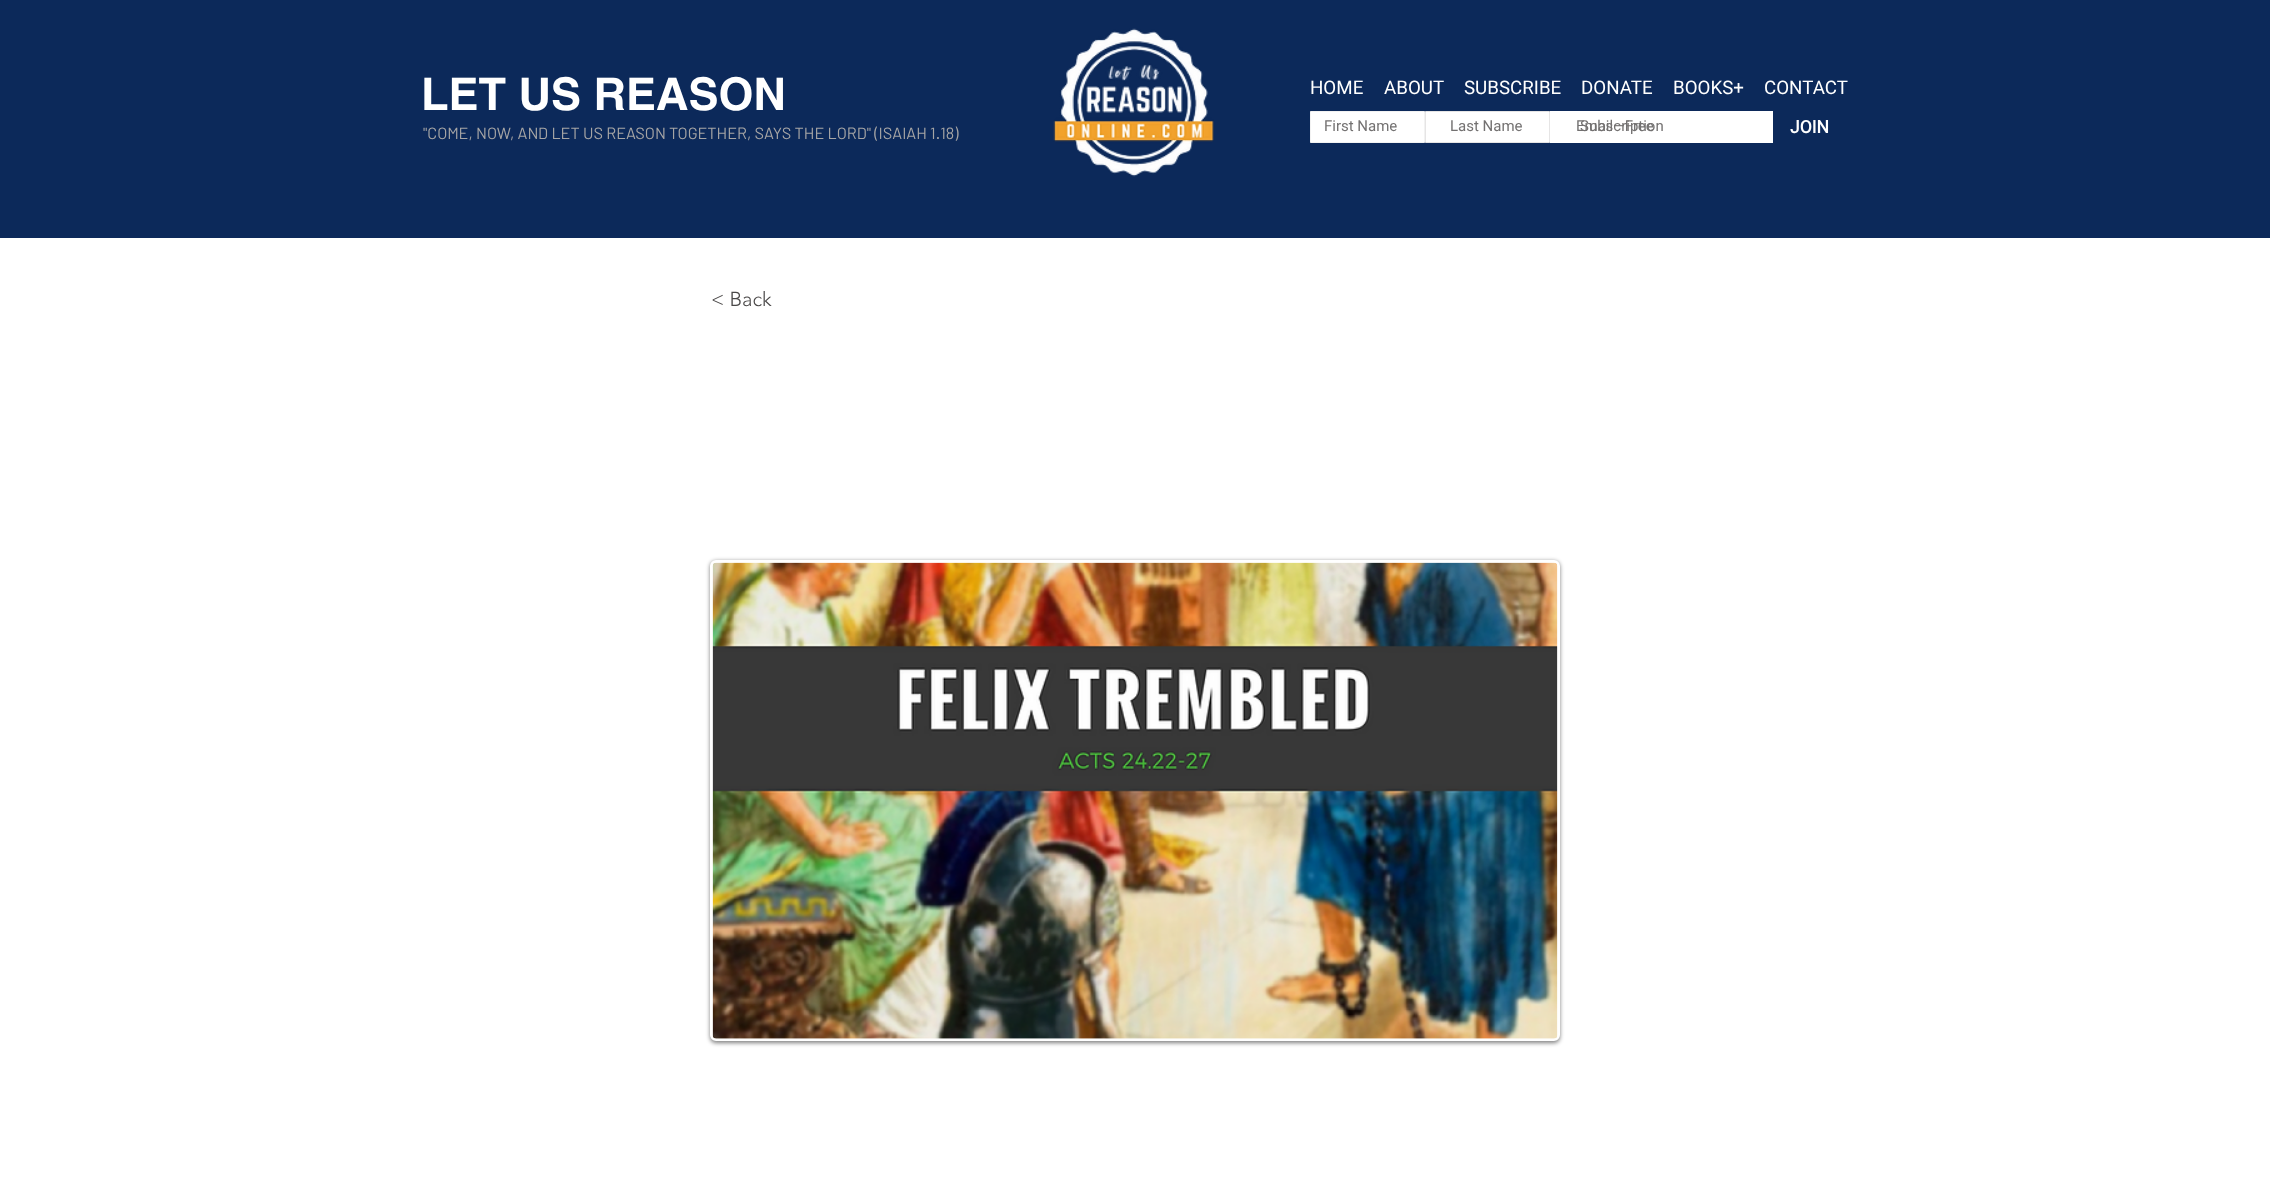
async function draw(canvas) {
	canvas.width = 2270;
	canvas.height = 1194;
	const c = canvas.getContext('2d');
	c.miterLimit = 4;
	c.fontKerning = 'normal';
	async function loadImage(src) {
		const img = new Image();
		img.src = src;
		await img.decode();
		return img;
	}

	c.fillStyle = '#fff';
	c.fillRect(0, 0, 2270, 1194);
	c.fillStyle = '#0c295a';
	c.fillRect(0, 0, 2270, 238);
	c.font = 'bold 45px helvetica';
	c.fillStyle = '#fff';
	c.fillText('LET US REASON', 421, 110);
	c.drawImage(await loadImage('img1.png'), 1053, 28, 161, 149);
	c.font = '18.75px Roboto';
	for (const [text, x, y] of [
		['HOME', 1310, 94],
		['ABOUT', 1384, 94],
		['SUBSCRIBE', 1464, 94],
		['DONATE', 1581, 94],
		['BOOKS+', 1673, 94],
		['CONTACT', 1764, 94],
	]) {
		c.fillText(text, x, y);
	}
	c.font = '16.25px Barlow';
	c.fillStyle = '#a6a5a5';
	c.fillText('"COME, NOW, AND LET US REASON TOGETHER, SAYS THE LORD" (ISAIAH 1.18)', 423, 139);
	c.fillStyle = '#fff';
	c.beginPath();
	c.rect(1310.5, 111.5, 114, 31);
	c.fill();
	c.strokeStyle = '#f2f2f2';
	c.stroke();
	c.font = '15px Roboto';
	c.fillStyle = '#737171';
	c.fillText('First Name', 1324, 131);
	c.fillStyle = '#fff';
	c.beginPath();
	c.rect(1425.5, 111.5, 124, 31);
	c.fill();
	c.strokeStyle = '#e6e5e5';
	c.stroke();
	c.fillStyle = '#737171';
	c.fillText('Last Name', 1450, 131);
	c.fillStyle = '#fff';
	c.fillRect(1550, 111, 223, 32);
	c.fillStyle = '#737171';
	c.fillText('Email—Free', 1576, 131);
	c.fillText('Subscription', 1580, 131);
	c.font = 'bold 17.5px Roboto';
	c.fillStyle = '#fff';
	c.fillText('JOIN', 1790, 133);
	c.font = '300 20px "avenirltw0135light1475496"';
	c.fillStyle = '#4a4848';
	c.fillText('< Back', 711, 306);
	c.fillStyle = '#00000080';
	c.filter = 'blur(2px)';
	c.beginPath();
	c.roundRect(710, 561, 850, 482, 6);
	c.fill();
	c.filter = 'none';
	c.beginPath();
	c.roundRect(711.5, 561.5, 847, 478, 4.5);
	c.strokeStyle = '#fff';
	c.lineWidth = 3;
	c.stroke();
	c.drawImage(await loadImage('img2.png'), 712, 562, 846, 477);
}

draw(document.querySelector('canvas'));
